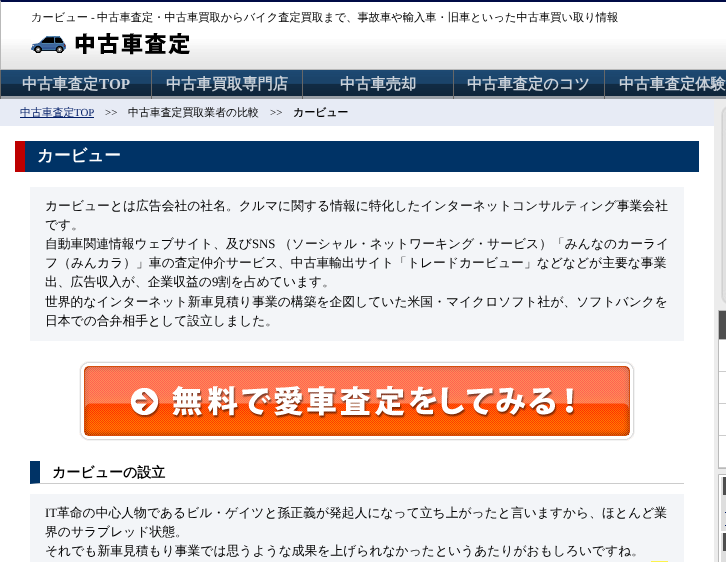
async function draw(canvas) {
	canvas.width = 726;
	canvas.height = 562;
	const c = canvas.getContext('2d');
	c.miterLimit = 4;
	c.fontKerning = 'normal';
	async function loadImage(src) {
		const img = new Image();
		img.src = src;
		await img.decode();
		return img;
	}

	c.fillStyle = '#ececec';
	c.fillRect(0, 0, 726, 562);
	c.drawImage(await loadImage('img1.png'), 0, 0, 726, 69);
	c.fillStyle = '#000b46';
	c.beginPath();
	c.moveTo(0, 0);
	c.lineTo(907, 0);
	c.lineTo(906, 2);
	c.lineTo(1, 2);
	c.closePath();
	c.fill();
	c.fillStyle = '#b9b9b9';
	c.fillRect(0, 69, 726, 1);
	c.beginPath();
	c.moveTo(0, 70);
	c.lineTo(0, 0);
	c.lineTo(1, 2);
	c.lineTo(1, 69);
	c.closePath();
	c.fill();
	c.font = '500 11.25px WenQuanYi Zen Hei';
	c.fillStyle = '#000';
	c.fillText('カービュー', 31, 21);
	c.font = '11.25px Liberation Serif';
	c.fillText('-', 91, 21);
	c.font = '500 11.25px WenQuanYi Zen Hei';
	c.fillText('中古車査定・中古車買取からバイク査定買取まで、事故車や輸入車・旧車といった中古車買い取り情報', 97, 21);
	c.drawImage(await loadImage('img2.png'), 31, 33, 159, 22);
	c.drawImage(await loadImage('img3.png'), 1, 70, 725, 29);
	c.fillStyle = '#676767';
	c.fillRect(0, 70, 1, 29);
	c.font = 'bold 15.25px WenQuanYi Zen Hei';
	c.fillStyle = '#cad1d9';
	c.fillText('中古車査定', 22, 89);
	c.font = 'bold 15.25px Liberation Serif';
	c.fillText('TOP', 99, 89);
	c.fillStyle = '#676767';
	c.fillRect(151, 70, 1, 29);
	c.font = 'bold 15.25px WenQuanYi Zen Hei';
	c.fillStyle = '#cad1d9';
	c.fillText('中古車買取専門店', 166, 89);
	c.fillStyle = '#676767';
	c.fillRect(302, 70, 1, 29);
	c.fillStyle = '#cad1d9';
	c.fillText('中古車売却', 340, 89);
	c.fillStyle = '#676767';
	c.fillRect(453, 70, 1, 29);
	c.fillStyle = '#cad1d9';
	c.fillText('中古車査定のコツ', 467, 89);
	c.fillStyle = '#676767';
	c.fillRect(604, 70, 1, 29);
	c.fillStyle = '#cad1d9';
	c.fillText('中古車査定体験', 619, 89);
	for (const [x, y, w, h, color] of [
		[0, 126, 714, 436, '#fff'],
		[0, 99, 714, 27, '#e7ebf5'],
		[20, 117, 74, 1, '#001d67'],
	]) {
		c.fillStyle = color;
		c.fillRect(x, y, w, h);
	}
	c.font = '500 10.9px WenQuanYi Zen Hei';
	c.fillText('中古車査定', 20, 116);
	c.font = '10.9px Liberation Serif';
	c.fillText('TOP', 74, 116);
	c.fillStyle = '#000';
	c.fillText('>>', 105, 116);
	c.font = '500 10.9px WenQuanYi Zen Hei';
	c.fillText('中古車査定買取業者の比較', 128, 116);
	c.font = '10.9px Liberation Serif';
	c.fillText('>>', 270, 116);
	c.font = 'bold 10.9px WenQuanYi Zen Hei';
	c.fillText('カービュー', 293, 116);
	c.fillStyle = '#036';
	c.fillRect(25, 141, 674, 31);
	c.fillStyle = '#bd0000';
	c.fillRect(15, 141, 10, 31);
	c.font = 'bold 16.5px WenQuanYi Zen Hei';
	c.fillStyle = '#fff';
	c.fillText('カービュー', 37, 161);
	c.fillStyle = '#f3f5f8';
	c.fillRect(30, 187, 654, 154);
	c.font = '500 12.8px WenQuanYi Zen Hei';
	c.fillStyle = '#000';
	for (const [text, x, y] of [
		['カービューとは広告会社の社名。クルマに関する情報に特化したインターネットコンサルティング事業会社', 45, 210],
		['です。', 45, 229],
		['自動車関連情報ウェブサイト、及び', 45, 248],
	]) {
		c.fillText(text, x, y);
	}
	c.font = '12.8px Liberation Serif';
	c.fillText('SNS', 252, 248);
	c.font = '500 12.8px WenQuanYi Zen Hei';
	for (const [text, x, y] of [
		['（ソーシャル・ネットワーキング・サービス）「みんなのカーライ', 279, 248],
		['フ（みんカラ）」車の査定仲介サービス、中古車輸出サイト「トレードカービュー」などなどが主要な事業', 45, 267],
		['出、広告収入が、企業収益の', 45, 286],
	]) {
		c.fillText(text, x, y);
	}
	c.font = '12.8px Liberation Serif';
	c.fillText('9', 212, 286);
	c.font = '500 12.8px WenQuanYi Zen Hei';
	for (const [text, x, y] of [
		['割を占めています。', 218, 286],
		['世界的なインターネット新車見積り事業の構築を企図していた米国・マイクロソフト社が、ソフトバンクを', 45, 306],
		['日本での合弁相手として設立しました。', 45, 325],
	]) {
		c.fillText(text, x, y);
	}
	c.drawImage(await loadImage('img4.png'), 79, 361, 556, 80);
	c.fillStyle = '#ccc';
	c.beginPath();
	c.moveTo(684, 484);
	c.lineTo(30, 484);
	c.lineTo(40, 483);
	c.lineTo(684, 483);
	c.closePath();
	c.fill();
	c.fillStyle = '#036';
	c.beginPath();
	c.moveTo(30, 484);
	c.lineTo(30, 461);
	c.lineTo(40, 461);
	c.lineTo(40, 483);
	c.closePath();
	c.fill();
	c.font = 'bold 14px WenQuanYi Zen Hei';
	c.fillStyle = '#000';
	c.fillText('カービューの設立', 52, 477);
	c.fillStyle = '#f3f5f8';
	c.fillRect(30, 494, 654, 68);
	c.font = '12.8px Liberation Serif';
	c.fillStyle = '#000';
	c.fillText('IT', 45, 517);
	c.font = '500 12.8px WenQuanYi Zen Hei';
	for (const [text, x, y] of [
		['革命の中心人物であるビル・ゲイツと孫正義が発起人になって立ち上がったと言いますから、ほとんど業', 57, 517],
		['界のサラブレッド状態。', 45, 536],
		['それでも新車見積もり事業では思うような成果を上げられなかったというあたりがおもしろいですね。', 45, 555],
	]) {
		c.fillText(text, x, y);
	}
	c.fillStyle = '#fcf34c';
	c.fillRect(651, 561, 17, 1);
	c.drawImage(await loadImage('img5.png'), 721, 106, 5, 198);
	c.fillStyle = '#fff';
	c.fillRect(719, 340, 7, 129);
	c.strokeStyle = '#bababa';
	c.strokeRect(718.5, 310.5, 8, 158);
	for (const [x, y, w, h, color] of [
		[719, 311, 7, 29, '#4e4e4e'],
		[719, 339, 7, 1, '#bababa'],
		[719, 371, 7, 1, '#ccc'],
		[719, 403, 7, 1, '#ccc'],
		[719, 435, 7, 1, '#ccc'],
		[719, 467, 7, 1, '#ccc'],
	]) {
		c.fillStyle = color;
		c.fillRect(x, y, w, h);
	}
	c.fillStyle = '#fff';
	c.beginPath();
	c.rect(718.5, 474.5, 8, 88);
	c.fill();
	c.stroke();
	for (const [x, y, w, h, color] of [
		[721, 477, 5, 54, '#dedede'],
		[723, 477, 3, 18, '#4e4e4e'],
		[725, 512, 1, 1, '#001d67'],
		[725, 525, 1, 1, '#001d67'],
		[721, 533, 5, 29, '#dedede'],
		[723, 533, 3, 18, '#4e4e4e'],
	]) {
		c.fillStyle = color;
		c.fillRect(x, y, w, h);
	}
}

draw(document.querySelector('canvas'));
